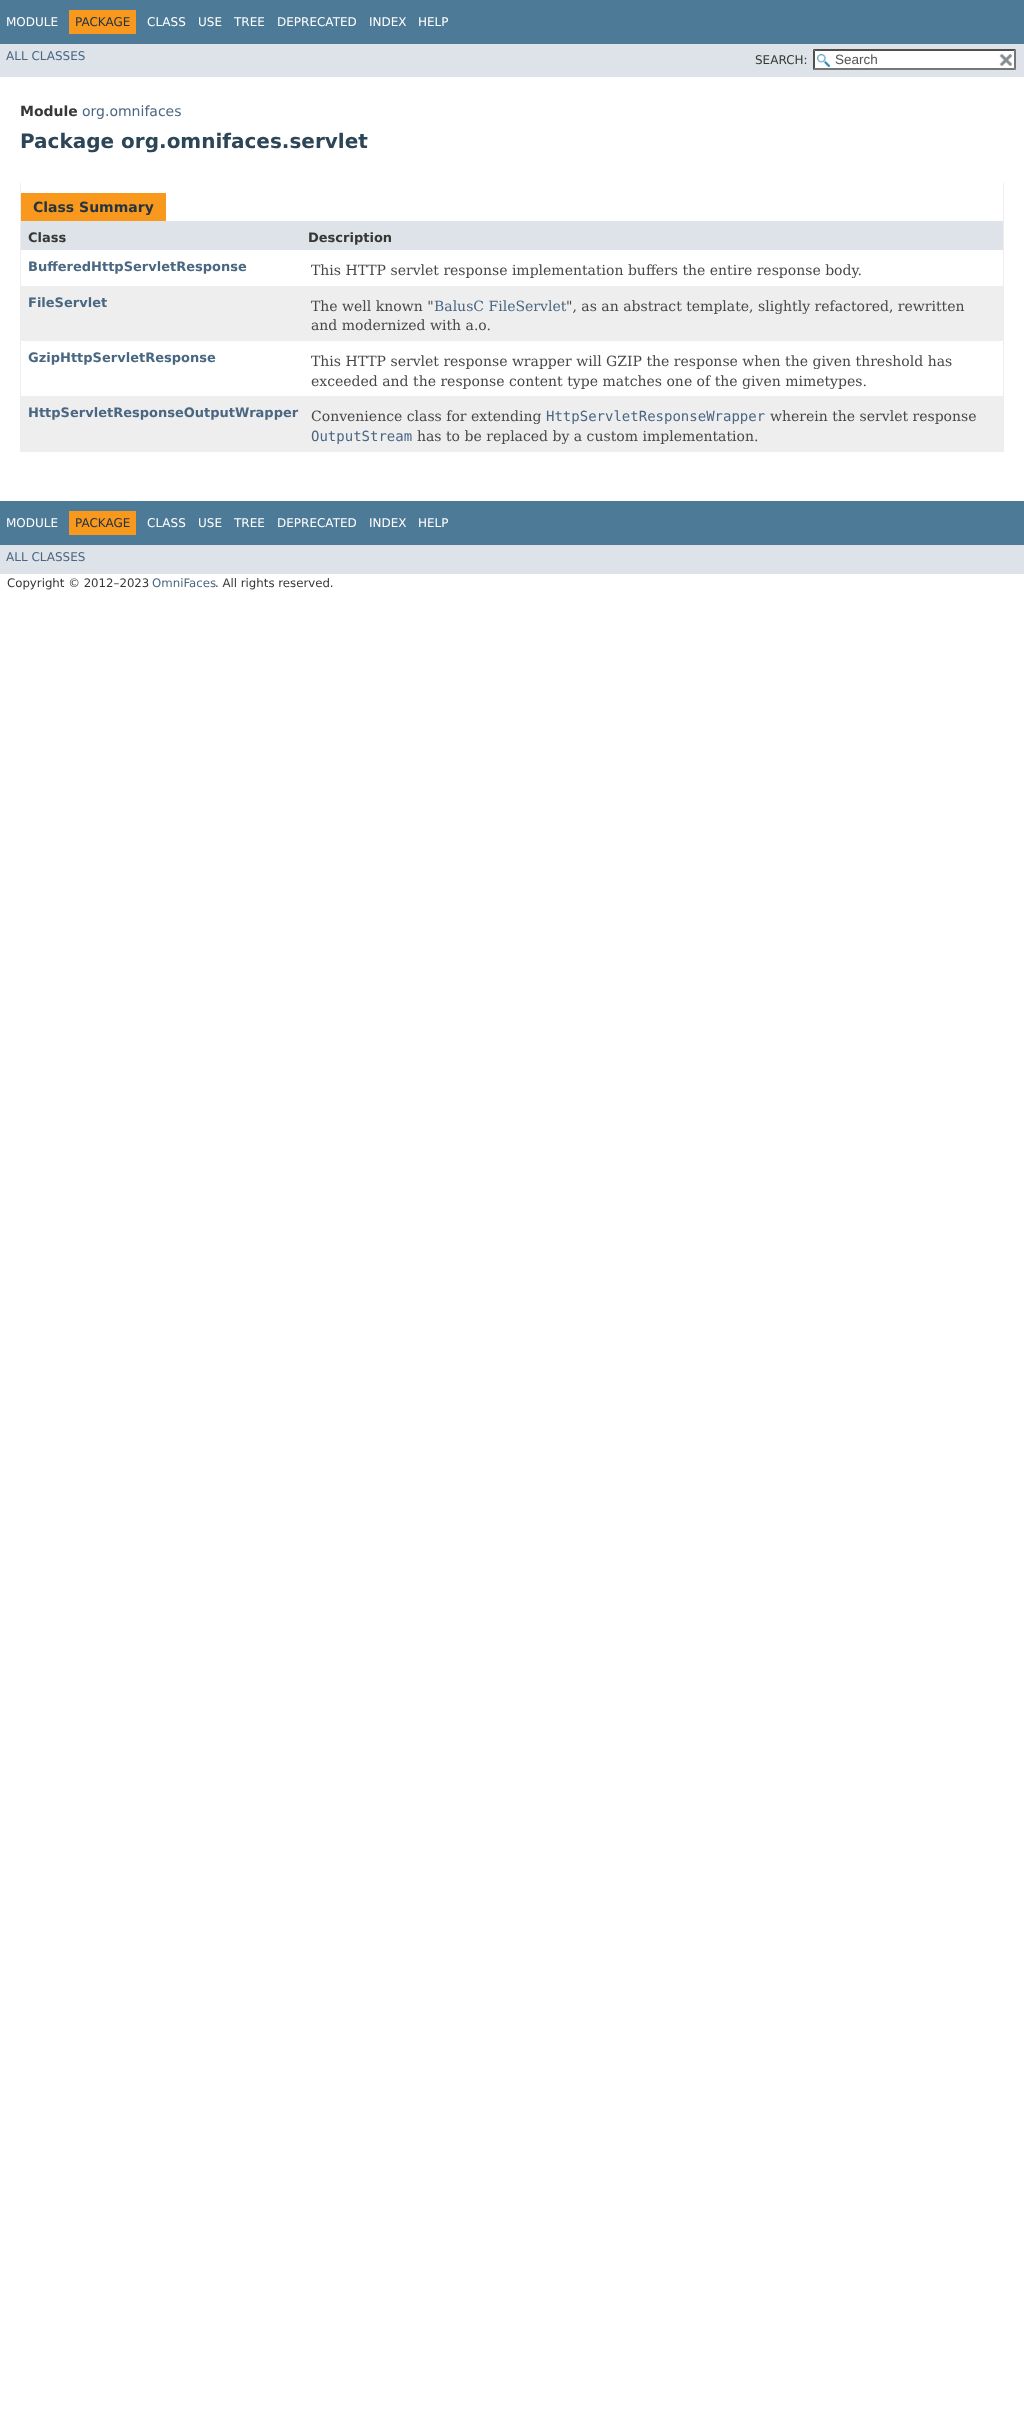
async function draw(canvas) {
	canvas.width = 1024;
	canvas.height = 2428;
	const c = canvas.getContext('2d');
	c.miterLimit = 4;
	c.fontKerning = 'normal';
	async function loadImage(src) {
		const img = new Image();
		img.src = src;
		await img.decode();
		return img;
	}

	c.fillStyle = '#fff';
	c.fillRect(0, 0, 1024, 2428);
	c.fillStyle = '#4d7a97';
	c.fillRect(0, 0, 1024, 44);
	c.font = '12px DejaVu Sans';
	c.fillStyle = '#fff';
	c.fillText('MODULE', 6, 26);
	c.fillStyle = '#f8981d';
	c.fillRect(69, 10, 67, 24);
	c.fillStyle = '#253441';
	c.fillText('PACKAGE', 75, 26);
	c.fillStyle = '#fff';
	for (const [text, x, y] of [
		['CLASS', 147, 26],
		['USE', 198, 26],
		['TREE', 234, 26],
		['DEPRECATED', 277, 26],
		['INDEX', 369, 26],
		['HELP', 418, 26],
	]) {
		c.fillText(text, x, y);
	}
	c.fillStyle = '#dee3e9';
	c.fillRect(0, 44, 1024, 33);
	c.fillStyle = '#4a6782';
	c.fillText('ALL CLASSES', 6, 60);
	c.fillStyle = '#353833';
	c.fillText('SEARCH:', 755, 64);
	c.fillStyle = '#fff';
	c.fillRect(813, 49, 203, 21);
	c.drawImage(await loadImage('img1.png'), 817, 54, 13, 13);
	c.fillStyle = '#4f4f4f';
	c.beginPath();
	c.moveTo(813, 49);
	c.lineTo(1016, 49);
	c.lineTo(1014, 51);
	c.lineTo(815, 51);
	c.closePath();
	c.fill();
	c.fillStyle = '#767676';
	c.beginPath();
	c.moveTo(1016, 49);
	c.lineTo(1016, 70);
	c.lineTo(1014, 68);
	c.lineTo(1014, 51);
	c.closePath();
	c.fill();
	c.beginPath();
	c.moveTo(1016, 70);
	c.lineTo(813, 70);
	c.lineTo(815, 68);
	c.lineTo(1014, 68);
	c.closePath();
	c.fill();
	c.fillStyle = '#4f4f4f';
	c.beginPath();
	c.moveTo(813, 70);
	c.lineTo(813, 49);
	c.lineTo(815, 51);
	c.lineTo(815, 68);
	c.closePath();
	c.fill();
	c.font = '13.5px Liberation Sans';
	c.fillStyle = '#545454';
	c.fillText('Search', 835, 64);
	c.drawImage(await loadImage('img2.png'), 999, 54, 14, 12);
	c.font = 'bold 14px DejaVu Sans';
	c.fillStyle = '#353833';
	c.fillText('Module', 20, 116);
	c.font = '14px DejaVu Sans';
	c.fillStyle = '#4a6782';
	c.fillText('org.omnifaces', 82, 116);
	c.font = 'bold 20px DejaVu Sans';
	c.fillStyle = '#2c4557';
	c.fillText('Package org.omnifaces.servlet', 20, 148);
	for (const [x, y, w, h, color] of [
		[1003, 183, 1, 269, '#eee'],
		[20, 451, 984, 1, '#eee'],
		[20, 183, 1, 269, '#eee'],
		[21, 193, 145, 28, '#f8981d'],
	]) {
		c.fillStyle = color;
		c.fillRect(x, y, w, h);
	}
	c.font = 'bold 14px DejaVu Sans';
	c.fillStyle = '#253441';
	c.fillText('Class Summary', 33, 212);
	c.fillStyle = '#dee3e9';
	c.fillRect(21, 221, 982, 29);
	c.font = 'bold 13px DejaVu Sans';
	c.fillStyle = '#353833';
	c.fillText('Class', 28, 242);
	c.fillText('Description', 308, 242);
	c.fillStyle = '#4a6782';
	c.fillText('BufferedHttpServletResponse', 28, 271);
	c.font = '14px DejaVu Serif';
	c.fillStyle = '#474747';
	c.fillText('This HTTP servlet response implementation buffers the entire response body.', 311, 275);
	c.fillStyle = '#eeeeef';
	c.fillRect(21, 286, 982, 55);
	c.font = 'bold 13px DejaVu Sans';
	c.fillStyle = '#4a6782';
	c.fillText('FileServlet', 28, 307);
	c.font = '14px DejaVu Serif';
	c.fillStyle = '#474747';
	c.fillText('The well known "', 311, 311);
	c.fillStyle = '#4a6782';
	c.fillText('BalusC FileServlet', 434, 311);
	c.fillStyle = '#474747';
	c.fillText('", as an abstract template, slightly refactored, rewritten', 566, 311);
	c.fillText('and modernized with a.o.', 311, 330);
	c.font = 'bold 13px DejaVu Sans';
	c.fillStyle = '#4a6782';
	c.fillText('GzipHttpServletResponse', 28, 362);
	c.font = '14px DejaVu Serif';
	c.fillStyle = '#474747';
	c.fillText('This HTTP servlet response wrapper will GZIP the response when the given threshold has', 311, 366);
	c.fillText('exceeded and the response content type matches one of the given mimetypes.', 311, 386);
	c.fillStyle = '#eeeeef';
	c.fillRect(21, 396, 982, 55);
	c.font = 'bold 13px DejaVu Sans';
	c.fillStyle = '#4a6782';
	c.fillText('HttpServletResponseOutputWrapper', 28, 417);
	c.font = '14px DejaVu Serif';
	c.fillStyle = '#474747';
	c.fillText('Convenience class for extending', 311, 421);
	c.font = '14px DejaVu Sans Mono';
	c.fillStyle = '#4a6782';
	c.fillText('HttpServletResponseWrapper', 546, 421);
	c.font = '14px DejaVu Serif';
	c.fillStyle = '#474747';
	c.fillText('wherein the servlet response', 770, 421);
	c.font = '14px DejaVu Sans Mono';
	c.fillStyle = '#4a6782';
	c.fillText('OutputStream', 311, 441);
	c.font = '14px DejaVu Serif';
	c.fillStyle = '#474747';
	c.fillText('has to be replaced by a custom implementation.', 417, 441);
	c.fillStyle = '#4d7a97';
	c.fillRect(0, 501, 1024, 44);
	c.font = '12px DejaVu Sans';
	c.fillStyle = '#fff';
	c.fillText('MODULE', 6, 527);
	c.fillStyle = '#f8981d';
	c.fillRect(69, 511, 67, 24);
	c.fillStyle = '#253441';
	c.fillText('PACKAGE', 75, 527);
	c.fillStyle = '#fff';
	for (const [text, x, y] of [
		['CLASS', 147, 527],
		['USE', 198, 527],
		['TREE', 234, 527],
		['DEPRECATED', 277, 527],
		['INDEX', 369, 527],
		['HELP', 418, 527],
	]) {
		c.fillText(text, x, y);
	}
	c.fillStyle = '#dee3e9';
	c.fillRect(0, 545, 1024, 29);
	c.fillStyle = '#4a6782';
	c.fillText('ALL CLASSES', 6, 561);
	c.font = '11.75px DejaVu Sans';
	c.fillStyle = '#353833';
	c.fillText('Copyright © 2012–2023', 7, 587);
	c.fillStyle = '#4a6782';
	c.fillText('OmniFaces', 152, 587);
	c.fillStyle = '#353833';
	c.fillText('. All rights reserved.', 215, 587);
}

draw(document.querySelector('canvas'));
